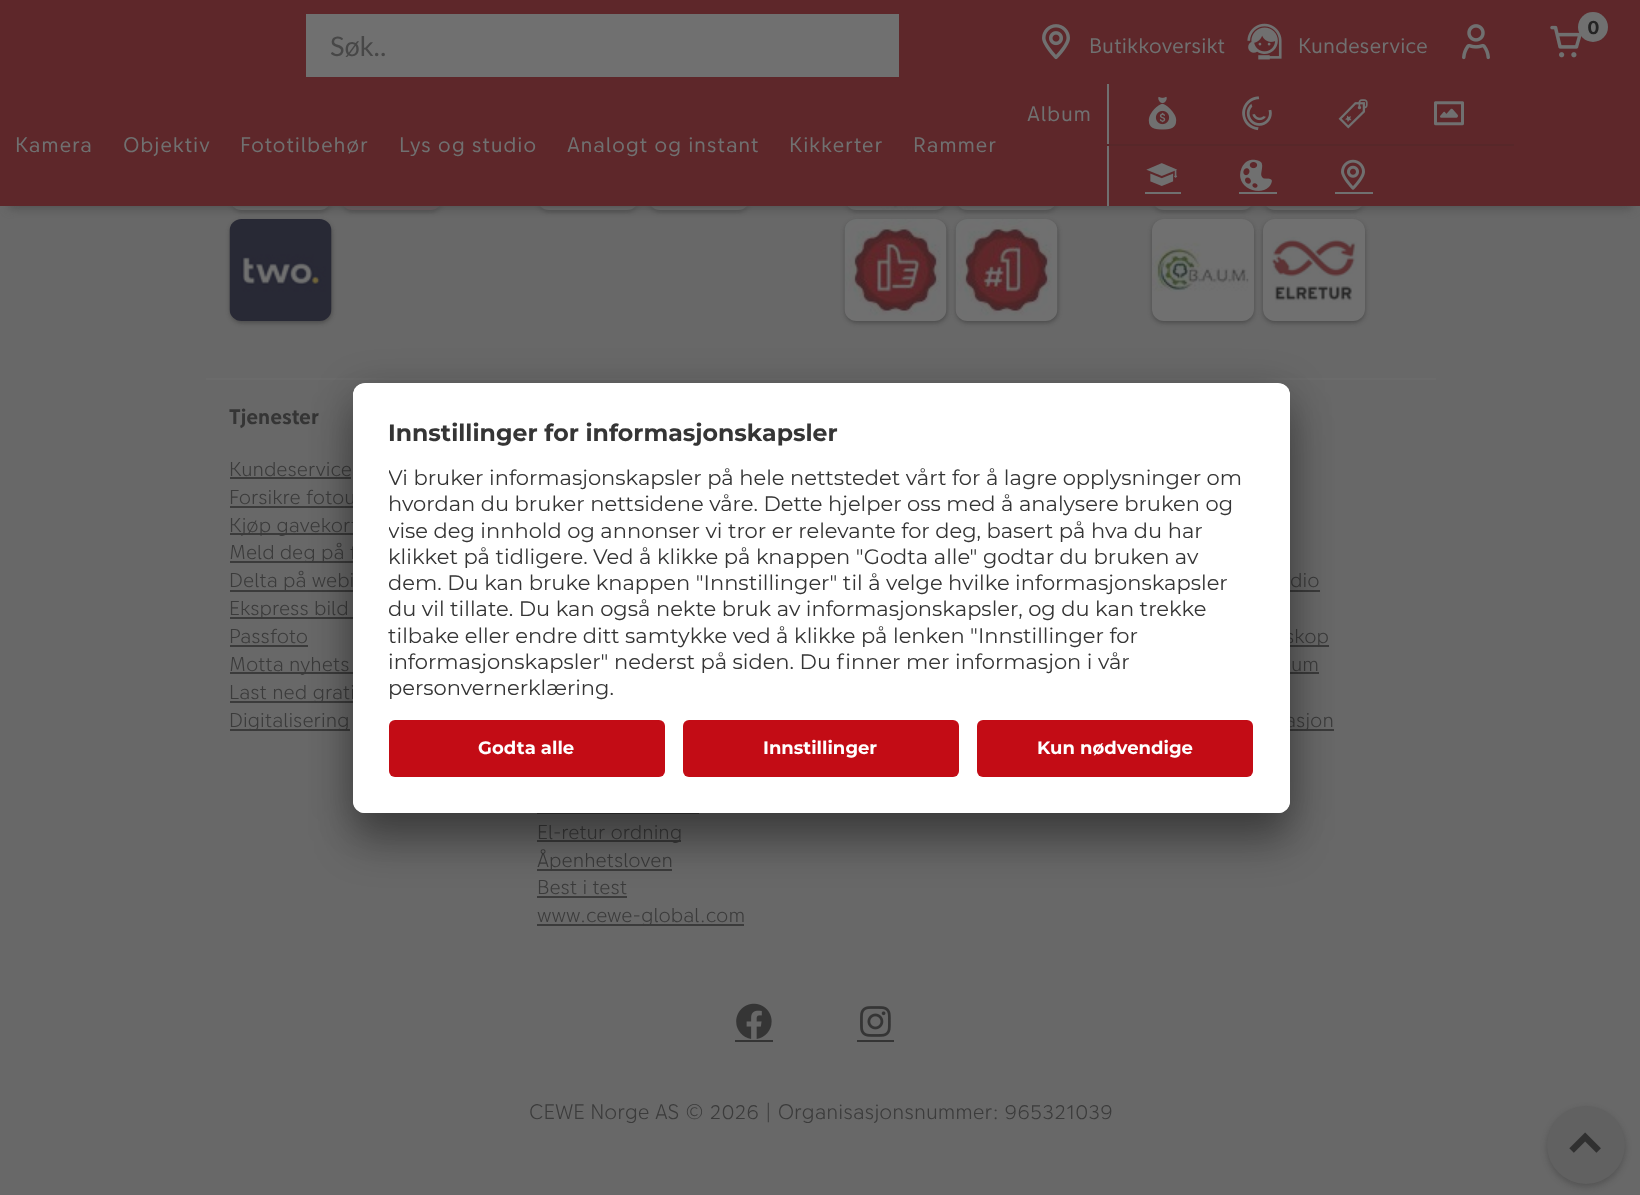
async function draw(canvas) {
	canvas.width = 1640;
	canvas.height = 1195;
	const c = canvas.getContext('2d');
	c.miterLimit = 4;
	c.fontKerning = 'normal';
	async function loadImage(src) {
		const img = new Image();
		img.src = src;
		await img.decode();
		return img;
	}

	c.fillStyle = '#686868';
	c.fillRect(0, 0, 1640, 1195);
	c.fillStyle = '#24242466';
	c.filter = 'blur(2px)';
	c.beginPath();
	c.roundRect(230, 110, 102, 102, 12);
	c.fill();
	c.filter = 'none';
	c.drawImage(await loadImage('img12.png'), 232, 206, 97, 4);
	c.filter = 'blur(2px)';
	c.beginPath();
	c.roundRect(341, 110, 102, 102, 12);
	c.fill();
	c.filter = 'none';
	c.drawImage(await loadImage('img13.png'), 343, 206, 97, 4);
	c.filter = 'blur(2px)';
	c.beginPath();
	c.roundRect(230, 221, 102, 102, 12);
	c.fill();
	c.filter = 'none';
	c.drawImage(await loadImage('img14.png'), 229, 219, 103, 102);
	c.filter = 'blur(2px)';
	c.beginPath();
	c.roundRect(537, 110, 102, 102, 12);
	c.fill();
	c.filter = 'none';
	c.drawImage(await loadImage('img15.png'), 540, 206, 96, 4);
	c.filter = 'blur(2px)';
	c.beginPath();
	c.roundRect(648, 110, 102, 102, 12);
	c.fill();
	c.filter = 'none';
	c.drawImage(await loadImage('img15.png'), 651, 206, 96, 4);
	c.filter = 'blur(2px)';
	c.beginPath();
	c.roundRect(845, 110, 102, 102, 12);
	c.fill();
	c.filter = 'none';
	c.drawImage(await loadImage('img16.png'), 847, 206, 97, 4);
	c.filter = 'blur(2px)';
	c.beginPath();
	c.roundRect(956, 110, 102, 102, 12);
	c.fill();
	c.filter = 'none';
	c.drawImage(await loadImage('img12.png'), 958, 206, 97, 4);
	c.filter = 'blur(2px)';
	c.beginPath();
	c.roundRect(845, 221, 102, 102, 12);
	c.fill();
	c.filter = 'none';
	c.drawImage(await loadImage('img17.png'), 844, 219, 103, 102);
	c.filter = 'blur(2px)';
	c.beginPath();
	c.roundRect(956, 221, 102, 102, 12);
	c.fill();
	c.filter = 'none';
	c.drawImage(await loadImage('img18.png'), 955, 219, 103, 102);
	c.filter = 'blur(2px)';
	c.beginPath();
	c.roundRect(1152, 110, 102, 102, 12);
	c.fill();
	c.filter = 'none';
	c.drawImage(await loadImage('img15.png'), 1155, 206, 96, 4);
	c.filter = 'blur(2px)';
	c.beginPath();
	c.roundRect(1263, 110, 102, 102, 12);
	c.fill();
	c.filter = 'none';
	c.drawImage(await loadImage('img19.png'), 1266, 206, 96, 4);
	c.filter = 'blur(2px)';
	c.beginPath();
	c.roundRect(1152, 221, 102, 102, 12);
	c.fill();
	c.filter = 'none';
	c.drawImage(await loadImage('img20.png'), 1152, 219, 102, 102);
	c.filter = 'blur(2px)';
	c.beginPath();
	c.roundRect(1263, 221, 102, 102, 12);
	c.fill();
	c.filter = 'none';
	c.drawImage(await loadImage('img21.png'), 1263, 219, 102, 102);
	c.fillStyle = '#545454';
	c.filter = 'blur(4.5px)';
	c.beginPath();
	c.rect(9, 21, 1623, 188);
	c.fill();
	c.filter = 'none';
	c.fillStyle = '#5e272a';
	c.fillRect(0, 0, 1640, 206);
	c.fillStyle = '#707070';
	c.fillRect(306, 14, 593, 63);
	c.font = '27px Lato';
	c.fillStyle = '#474747';
	c.fillText('Søk..', 330, 56);
	c.drawImage(await loadImage('img1.png'), 1042, 24, 28, 36);
	c.font = '21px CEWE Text';
	c.fillStyle = '#707070';
	c.fillText('Butikkoversikt', 1089, 53);
	c.drawImage(await loadImage('img2.png'), 1247, 23, 35, 37);
	c.fillText('Kundeservice', 1298, 53);
	c.drawImage(await loadImage('img3.png'), 1462, 24, 28, 36);
	c.drawImage(await loadImage('img4.png'), 1550, 25, 32, 33);
	c.beginPath();
	c.arc(1593, 27, 15, 0, 2 * Math.PI);
	c.fill();
	c.font = 'bold 20px CEWE Text';
	c.fillStyle = '#242424';
	c.fillText('0', 1587, 34);
	c.letterSpacing = '0.75px';
	c.font = '21px CEWE Text';
	c.fillStyle = '#707070';
	for (const [text, x, y] of [
		['Album', 1027, 121],
		['Kamera', 15, 152],
		['Objektiv', 123, 152],
		['Fototilbehør', 240, 152],
		['Lys og studio', 399, 152],
		['Analogt og instant', 567, 152],
		['Kikkerter', 789, 152],
		['Rammer', 913, 152],
	]) {
		c.fillText(text, x, y);
	}
	c.fillRect(1107, 84, 2, 60);
	c.drawImage(await loadImage('img5.png'), 1148, 96, 29, 34);
	c.drawImage(await loadImage('img6.png'), 1242, 96, 30, 35);
	c.drawImage(await loadImage('img7.png'), 1338, 99, 30, 30);
	c.drawImage(await loadImage('img8.png'), 1434, 101, 30, 25);
	c.fillStyle = '#572729';
	c.fillRect(1107, 144, 407, 2);
	c.fillStyle = '#707070';
	c.fillRect(1107, 146, 2, 60);
	c.drawImage(await loadImage('img9.png'), 1146, 163, 32, 23);
	c.fillRect(1145, 192, 36, 2);
	c.drawImage(await loadImage('img10.png'), 1240, 159, 32, 32);
	c.fillRect(1239, 192, 38, 2);
	c.drawImage(await loadImage('img11.png'), 1341, 159, 24, 31);
	c.fillRect(1335, 192, 38, 2);
	c.fillStyle = '#6b6b6b';
	c.fillRect(206, 378, 1230, 2);
	c.letterSpacing = '0px';
	c.font = 'bold 21px CEWE Text';
	c.fillStyle = '#353535';
	c.fillText('Tjenester', 229, 424);
	c.font = '300 20px CEWE Text';
	c.fillStyle = '#3b3b3b';
	c.fillText('Kundeservice', 229, 476);
	c.fillRect(230, 477, 121, 2);
	c.fillText('Forsikre fotou', 229, 504);
	c.fillRect(230, 506, 123, 2);
	c.fillRect(230, 533, 129, 2);
	c.fillText('Kjøp gavekort', 229, 532);
	c.fillRect(230, 561, 123, 2);
	c.fillText('Meld deg på f', 229, 559);
	c.fillRect(230, 590, 123, 2);
	c.fillText('Delta på webi', 229, 587);
	c.fillRect(230, 617, 123, 2);
	c.fillText('Ekspress bild', 229, 615);
	c.fillText('Passfoto', 229, 643);
	c.fillRect(230, 645, 78, 2);
	c.fillRect(230, 672, 123, 2);
	c.fillText('Motta nyhets', 229, 671);
	c.fillRect(230, 701, 123, 2);
	c.fillText('Last ned grati', 229, 699);
	c.fillRect(230, 729, 120, 2);
	c.fillText('Digitalisering', 229, 727);
	c.fillText('dio', 1290, 587);
	c.fillRect(1290, 590, 30, 2);
	c.fillRect(1290, 645, 39, 2);
	c.fillText('skop', 1285, 643);
	c.fillText('um', 1291, 671);
	c.fillRect(1290, 672, 29, 2);
	c.fillRect(1290, 729, 44, 2);
	c.fillText('asjon', 1285, 727);
	c.fillRect(537, 813, 162, 1);
	c.fillRect(537, 840, 144, 2);
	c.fillText('El-retur ordning', 537, 839);
	c.fillRect(537, 869, 135, 2);
	c.fillText('Åpenhetsloven', 537, 867);
	c.fillText('Best i test', 537, 894);
	c.fillRect(537, 896, 90, 2);
	c.fillRect(537, 924, 207, 2);
	c.fillText('www.cewe-global.com', 537, 922);
	c.drawImage(await loadImage('img22.png'), 736, 1003, 36, 36);
	c.fillStyle = '#353535';
	c.fillRect(735, 1040, 38, 2);
	c.drawImage(await loadImage('img23.png'), 860, 1006, 31, 31);
	c.fillRect(857, 1040, 37, 2);
	c.font = '300 21px CEWE Text';
	c.fillStyle = '#3b3b3b';
	c.fillText('CEWE Norge AS © 2026 | Organisasjonsnummer: 965321039', 529, 1119);
	c.fillStyle = '#2424244d';
	c.filter = 'blur(3px)';
	c.beginPath();
	c.roundRect(1547, 1109, 78, 78, 39);
	c.fill();
	c.filter = 'none';
	c.fillStyle = '#616161';
	c.beginPath();
	c.arc(1586, 1145, 39, 0, 2 * Math.PI);
	c.fill();
	c.drawImage(await loadImage('img24.png'), 1569, 1132, 32, 21);
	c.fillStyle = '#0000004d';
	c.filter = 'blur(21px)';
	c.beginPath();
	c.roundRect(353, 413, 937, 430, 12);
	c.fill();
	c.filter = 'none';
	c.fillStyle = '#00000038';
	c.filter = 'blur(19.5px)';
	c.beginPath();
	c.roundRect(353, 390, 937, 431, 12);
	c.fill();
	c.filter = 'none';
	c.fillStyle = '#fff';
	c.beginPath();
	c.roundRect(353, 383, 937, 430, 12);
	c.fill();
	c.save();
	c.beginPath();
	c.roundRect(353, 383, 937, 430, 12);
	c.clip();
	c.beginPath();
	c.roundRect(353, 383, 937, 325, [12, 12, 0, 0]);
	c.clip();
	c.fillRect(353, 384, 937, 324);
	c.restore();
	c.font = 'bold 23.6px Montserrat';
	c.fillStyle = '#353535';
	c.fillText('Innstillinger for informasjonskapsler', 388, 441);
	c.save();
	c.beginPath();
	c.rect(389, 459, 865, 249);
	c.clip();
	c.font = '21px Montserrat';
	c.fillText('Vi bruker informasjonskapsler på hele nettstedet vårt for å lagre opplysninger om', 388, 485);
	c.restore();
	c.font = '21px Montserrat';
	c.fillText('hvordan du bruker nettsidene våre. Dette hjelper oss med å analysere bruken og', 388, 511);
	c.save();
	c.beginPath();
	c.rect(389, 459, 865, 249);
	c.clip();
	c.fillText('vise deg innhold og annonser vi tror er relevante for deg, basert på hva du har', 388, 538);
	c.restore();
	c.fillText('klikket på tidligere. Ved å klikke på knappen "Godta alle" godtar du bruken av', 388, 564);
	c.save();
	c.beginPath();
	c.rect(389, 459, 865, 249);
	c.clip();
	c.fillText('dem. Du kan bruke knappen "Innstillinger" til å velge hvilke informasjonskapsler', 388, 590);
	c.fillText('du vil tillate. Du kan også nekte bruk av informasjonskapsler, og du kan trekke', 388, 616);
	c.restore();
	for (const [text, x, y] of [
		['tilbake eller endre ditt samtykke ved å klikke på lenken "Innstillinger for', 388, 643],
		['informasjonskapsler" nederst på siden. Du finner mer informasjon i vår', 388, 669],
		['personvernerklæring.', 388, 695],
	]) {
		c.fillText(text, x, y);
	}
	c.fillStyle = '#fff';
	c.beginPath();
	c.roundRect(353, 708, 937, 105, [0, 0, 12, 12]);
	c.fill();
	c.fillStyle = '#c30c15';
	c.beginPath();
	c.roundRect(389, 720, 276, 57, 6);
	c.fill();
	c.font = 'bold 18px Montserrat';
	c.fillStyle = '#fff';
	c.fillText('Godta alle', 478, 754);
	c.fillStyle = '#c30c15';
	c.beginPath();
	c.roundRect(683, 720, 276, 57, 6);
	c.fill();
	c.fillStyle = '#fff';
	c.fillText('Innstillinger', 763, 754);
	c.fillStyle = '#c30c15';
	c.beginPath();
	c.roundRect(977, 720, 276, 57, 6);
	c.fill();
	c.fillStyle = '#fff';
	c.fillText('Kun nødvendige', 1037, 754);
}

draw(document.querySelector('canvas'));
